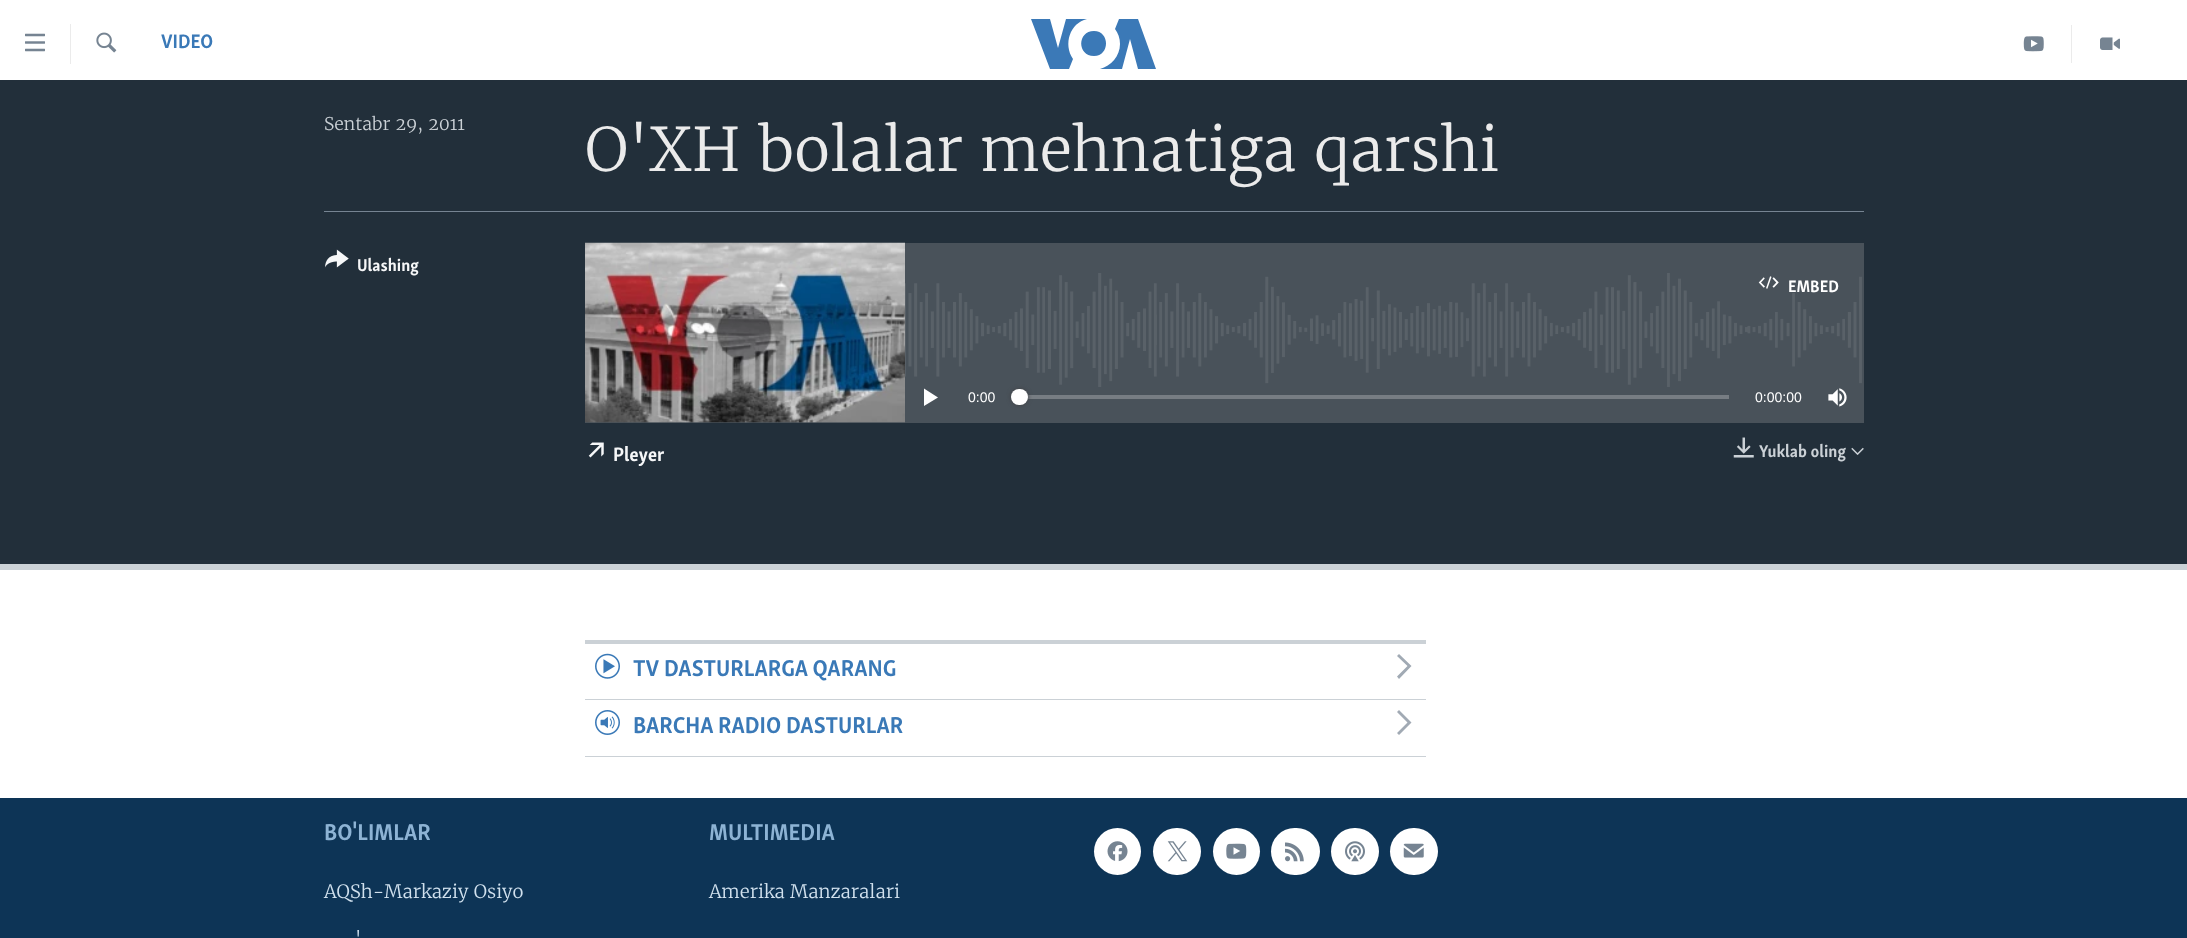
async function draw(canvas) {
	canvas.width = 2187;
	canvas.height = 938;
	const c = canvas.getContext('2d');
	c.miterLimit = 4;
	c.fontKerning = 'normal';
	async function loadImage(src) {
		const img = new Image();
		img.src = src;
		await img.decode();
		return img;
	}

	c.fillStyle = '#fff';
	c.fillRect(0, 0, 2187, 938);
	c.drawImage(await loadImage('img1.png'), 25, 33, 20, 19);
	c.fillStyle = '#ebebeb';
	c.fillRect(70, 24, 1, 40);
	c.drawImage(await loadImage('img2.png'), 96, 32, 21, 21);
	c.font = 'bold 20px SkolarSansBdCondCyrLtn';
	c.fillStyle = '#3a79b7';
	c.fillText('VIDEO', 161, 48);
	c.fillStyle = '#3b79b7';
	c.beginPath();
	c.moveTo(1073, 59);
	c.lineTo(1069, 69);
	c.lineTo(1050, 69);
	c.lineTo(1031, 19);
	c.lineTo(1050, 19);
	c.lineTo(1058, 48);
	c.lineTo(1066, 19);
	c.lineTo(1087, 19);
	c.bezierCurveTo(1070, 23, 1063, 44, 1073, 59);
	c.closePath();
	c.moveTo(1094, 31);
	c.bezierCurveTo(1077, 31, 1077, 56, 1094, 56);
	c.bezierCurveTo(1110, 56, 1110, 31, 1094, 31);
	c.closePath();
	c.moveTo(1120, 44);
	c.bezierCurveTo(1120, 56, 1111, 66, 1100, 69);
	c.lineTo(1122, 69);
	c.lineTo(1130, 39);
	c.lineTo(1138, 69);
	c.lineTo(1156, 69);
	c.lineTo(1138, 19);
	c.lineTo(1119, 19);
	c.lineTo(1115, 29);
	c.bezierCurveTo(1118, 33, 1120, 38, 1120, 44);
	c.closePath();
	c.fill();
	c.fillStyle = '#ebebeb';
	c.fillRect(2071, 25, 1, 38);
	c.drawImage(await loadImage('img3.png'), 2023, 36, 21, 16);
	c.drawImage(await loadImage('img4.png'), 2100, 37, 20, 13);
	c.fillStyle = '#222f3a';
	c.fillRect(0, 80, 2187, 484);
	c.fillStyle = '#cbd1d6';
	c.fillRect(0, 564, 2187, 6);
	c.font = '300 17.5px Merriweather';
	c.fillText('Sentabr 29, 2011', 324, 130);
	c.font = '300 60px Merriweather';
	c.fillStyle = '#ebebeb';
	c.fillText('O\'XH bolalar mehnatiga qarshi', 585, 171);
	c.fillStyle = '#768492';
	c.fillRect(324, 211, 1540, 1);
	c.drawImage(await loadImage('img5.png'), 325, 249, 24, 19);
	c.font = 'bold 17.5px SkolarSansBdCondCyrLtn';
	c.fillStyle = '#f6f7f8';
	c.fillText('Ulashing', 357, 271);
	c.fillStyle = '#49525a';
	c.fillRect(585, 243, 1279, 180);
	c.drawImage(await loadImage('img6.png'), 905, 273, 957, 114);
	c.drawImage(await loadImage('img7.png'), 585, 242, 320, 181);
	c.drawImage(await loadImage('img8.png'), 1758, 276, 21, 13);
	c.font = 'bold 17px SkolarSansBdCondCyrLtn';
	c.fillStyle = '#fff';
	c.fillText('EMBED', 1788, 292);
	c.beginPath();
	c.moveTo(924, 406);
	c.lineTo(938, 397.5);
	c.lineTo(924, 388.5);
	c.closePath();
	c.fill();
	c.font = '14px Liberation Sans';
	c.fillText('0:00', 968, 402);
	c.fillStyle = '#777d83';
	c.fillRect(1019, 395, 710, 4);
	c.fillStyle = '#414144';
	c.filter = 'blur(2px)';
	c.beginPath();
	c.roundRect(1011, 389, 17, 16, 8);
	c.fill();
	c.filter = 'none';
	c.fillStyle = '#fff';
	c.beginPath();
	c.roundRect(1011, 389, 17, 16, 8);
	c.fill();
	c.fillText('0:00:00', 1755, 402);
	c.drawImage(await loadImage('img9.png'), 1828, 388, 19, 19);
	c.drawImage(await loadImage('img10.png'), 588, 442, 16, 16);
	c.font = 'bold 20px SkolarSansBdCondCyrLtn';
	c.fillStyle = '#f6f7f8';
	c.fillText('Pleyer', 613, 461);
	c.drawImage(await loadImage('img11.png'), 1733, 437, 21, 21);
	c.font = 'bold 17.5px SkolarSansBdCondCyrLtn';
	c.fillStyle = '#cbd1d6';
	c.fillText('Yuklab oling', 1759, 457);
	c.drawImage(await loadImage('img12.png'), 1851, 447, 13, 8);
	c.fillRect(585, 640, 841, 4);
	c.fillRect(585, 699, 841, 1);
	c.drawImage(await loadImage('img13.png'), 595, 653, 25, 26);
	c.font = 'bold 23.6px SkolarSansBdCondCyrLtn';
	c.fillStyle = '#3a79b7';
	c.fillText('TV DASTURLARGA QARANG', 633, 676);
	c.fillStyle = '#a1aab4';
	c.beginPath();
	c.moveTo(1399, 679);
	c.lineTo(1411.5, 666);
	c.lineTo(1399, 654);
	c.lineTo(1397, 656);
	c.lineTo(1407.5, 666);
	c.lineTo(1397, 676.5);
	c.closePath();
	c.fill();
	c.fillStyle = '#cbd1d6';
	c.fillRect(585, 756, 841, 1);
	c.drawImage(await loadImage('img14.png'), 595, 710, 25, 25);
	c.fillStyle = '#3a79b7';
	c.fillText('BARCHA RADIO DASTURLAR', 633, 733);
	c.fillStyle = '#a1aab4';
	c.beginPath();
	c.moveTo(1399, 735);
	c.lineTo(1411.5, 722.5);
	c.lineTo(1399, 710);
	c.lineTo(1397, 712);
	c.lineTo(1407.5, 722.5);
	c.lineTo(1397, 733);
	c.closePath();
	c.fill();
	c.fillStyle = '#0d3456';
	c.fillRect(0, 798, 2187, 140);
	c.fillStyle = '#8db3d4';
	c.fillText('BO\'LIMLAR', 324, 840);
	c.font = '300 18.4px Merriweather';
	c.fillStyle = '#d1e1ee';
	c.fillText('AQSh-Markaziy Osiyo', 324, 898);
	c.fillText('\'', 355, 945);
	c.font = 'bold 23.6px SkolarSansBdCondCyrLtn';
	c.fillStyle = '#8db3d4';
	c.fillText('MULTIMEDIA', 709, 840);
	c.font = '300 18.4px Merriweather';
	c.fillStyle = '#d1e1ee';
	c.fillText('Amerika Manzaralari', 709, 898);
	c.fillStyle = '#fff';
	c.beginPath();
	c.arc(1117.5, 851.5, 23.5, 0, 2 * Math.PI);
	c.fill();
	c.drawImage(await loadImage('img15.png'), 1107, 841, 21, 21);
	c.beginPath();
	c.roundRect(1153, 828, 48, 47, 23.5);
	c.fill();
	c.drawImage(await loadImage('img16.png'), 1167, 841, 21, 21);
	c.beginPath();
	c.arc(1236.5, 851.5, 23.5, 0, 2 * Math.PI);
	c.fill();
	c.drawImage(await loadImage('img17.png'), 1226, 843, 21, 16);
	c.beginPath();
	c.roundRect(1271, 828, 49, 47, 23.5);
	c.fill();
	c.drawImage(await loadImage('img18.png'), 1285, 842, 19, 20);
	c.beginPath();
	c.roundRect(1331, 828, 48, 47, 23.5);
	c.fill();
	c.drawImage(await loadImage('img19.png'), 1345, 841, 20, 21);
	c.beginPath();
	c.roundRect(1390, 828, 48, 47, 23.5);
	c.fill();
	c.drawImage(await loadImage('img20.png'), 1403, 843, 21, 15);
}

draw(document.querySelector('canvas'));
